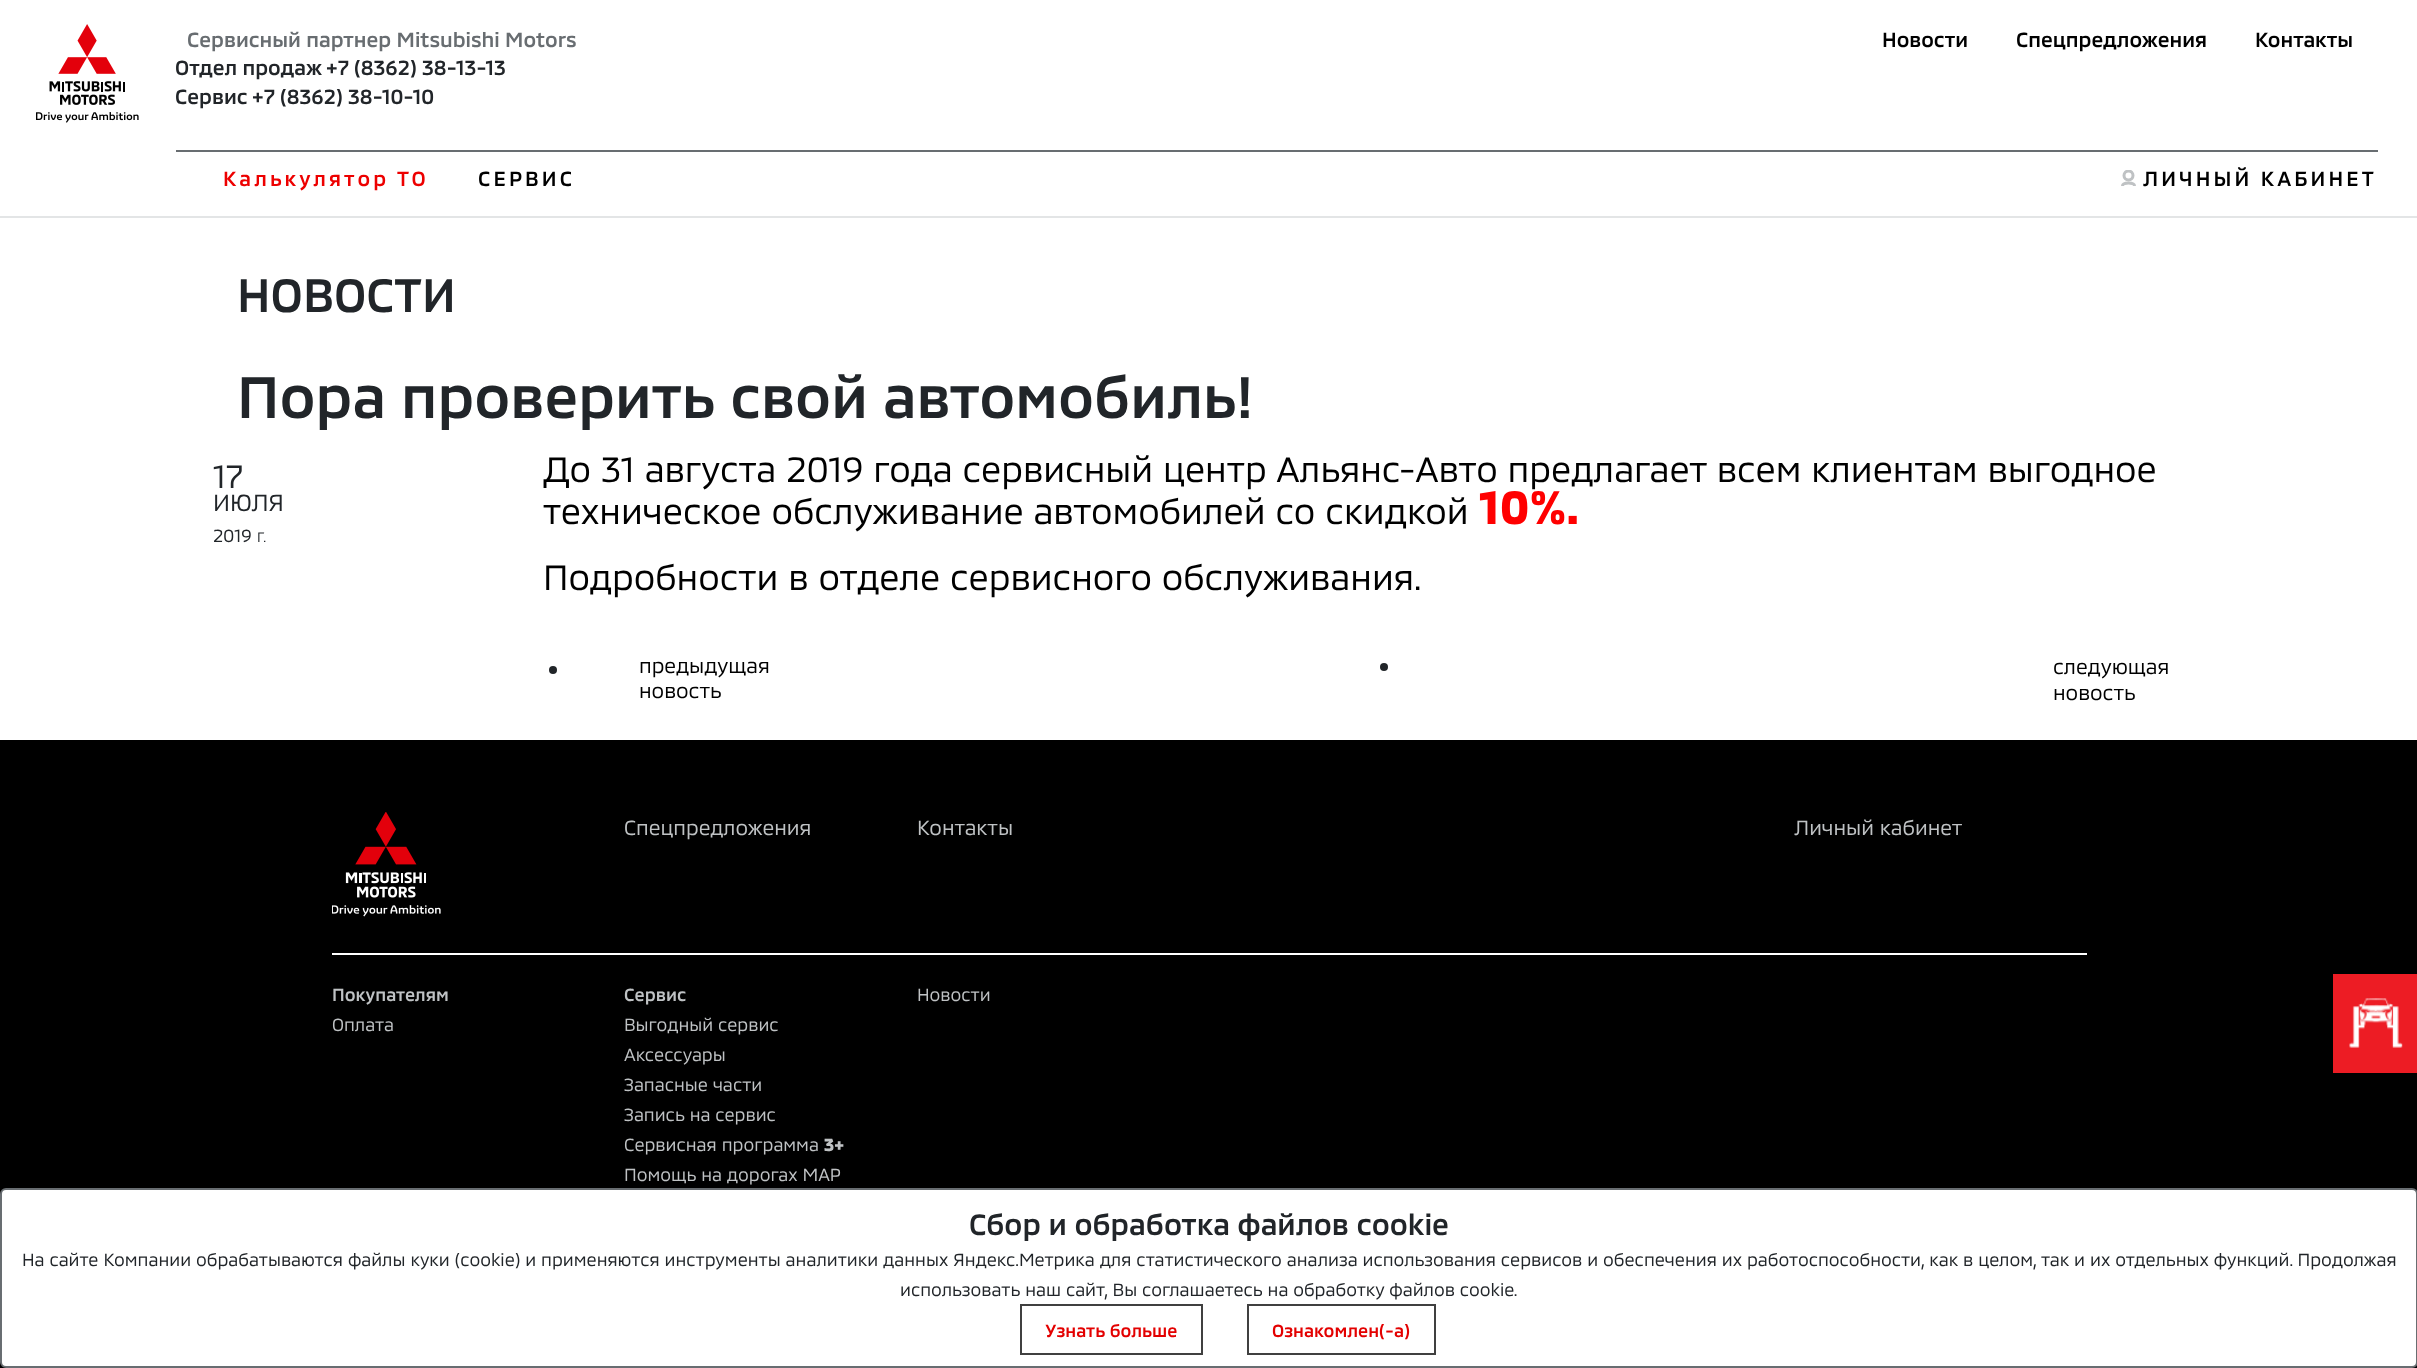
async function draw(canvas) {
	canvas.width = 2417;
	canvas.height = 1368;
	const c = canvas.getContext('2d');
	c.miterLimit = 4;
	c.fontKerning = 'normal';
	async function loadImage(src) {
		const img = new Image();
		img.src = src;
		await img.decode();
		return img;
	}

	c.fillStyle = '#fff';
	c.fillRect(0, 0, 2417, 1368);
	c.fillStyle = '#e3e5e6';
	c.fillRect(0, 216, 2417, 2);
	c.drawImage(await loadImage('img1.png'), 36, 24, 103, 99);
	c.fillStyle = '#686d71';
	c.fillRect(176, 150, 2202, 2);
	c.font = '500 21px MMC';
	c.fillText('Сервисный партнер Mitsubishi Motors', 187, 47);
	c.fillStyle = '#212529';
	for (const [text, x, y] of [
		['Отдел продаж', 175, 75],
		['+7 (8362) 38-13-13', 326, 75],
		['Сервис', 175, 104],
		['+7 (8362) 38-10-10', 252, 104],
	]) {
		c.fillText(text, x, y);
	}
	c.fillStyle = '#000';
	for (const [text, x, y] of [
		['Новости', 1882, 47],
		['Спецпредложения', 2016, 47],
		['Контакты', 2255, 47],
	]) {
		c.fillText(text, x, y);
	}
	c.letterSpacing = '3.1px';
	c.fillStyle = '#ed0000';
	c.fillText('Калькулятор ТО', 223, 186);
	c.fillStyle = '#000';
	c.fillText('СЕРВИС', 478, 186);
	c.fillText('ЛИЧНЫЙ КАБИНЕТ', 2143, 186);
	c.save();
	c.beginPath();
	c.rect(2121, 170, 15, 18);
	c.clip();
	c.beginPath();
	c.arc(2128.5, 175.5, 4.5, 0, 2 * Math.PI);
	c.strokeStyle = '#bfc2c4';
	c.lineWidth = 3;
	c.stroke();
	c.restore();
	c.beginPath();
	c.moveTo(2134.5, 186);
	c.bezierCurveTo(2134.5, 182, 2122.5, 182, 2122.5, 186);
	c.strokeStyle = '#bfc2c4';
	c.lineWidth = 3;
	c.stroke();
	c.letterSpacing = '0px';
	c.font = '500 48px MMC';
	c.fillStyle = '#212529';
	c.fillText('НОВОСТИ', 237, 312);
	c.font = '500 60px MMC';
	c.fillText('Пора проверить свой автомобиль!', 237, 418);
	c.font = '33px MMC';
	c.fillText('17', 213, 488);
	c.font = '24px MMC';
	c.fillText('ИЮЛЯ', 213, 511);
	c.font = '18px MMC';
	c.fillText('2019', 213, 542);
	c.font = '14px MMC';
	c.fillText('Г.', 257, 542);
	c.font = '36px MMC';
	c.fillStyle = '#000';
	c.fillText('До 31 августа 2019 года сервисный центр Альянс-Авто предлагает всем клиентам выгодное', 543, 482);
	c.fillText('техническое обслуживание автомобилей со скидкой', 543, 524);
	c.font = 'bold 48px MMC';
	c.fillStyle = '#f00';
	c.fillText('10%.', 1479, 524);
	c.font = '36px MMC';
	c.fillStyle = '#000';
	c.fillText('Подробности в отделе сервисного обслуживания.', 543, 590);
	c.fillStyle = '#212529';
	c.beginPath();
	c.arc(553, 670, 4, 0, 2 * Math.PI);
	c.fill();
	c.font = '21px MMC';
	c.fillStyle = '#000';
	c.fillText('предыдущая', 639, 673);
	c.fillText('новость', 639, 698);
	c.fillStyle = '#212529';
	c.beginPath();
	c.arc(1384, 667, 4, 0, 2 * Math.PI);
	c.fill();
	c.fillStyle = '#000';
	c.fillText('следующая', 2053, 674);
	c.fillText('новость', 2053, 700);
	c.fillRect(0, 740, 2417, 628);
	c.drawImage(await loadImage('img2.png'), 332, 812, 109, 105);
	c.fillStyle = '#bfc2c4';
	for (const [text, x, y] of [
		['Спецпредложения', 624, 835],
		['Контакты', 917, 835],
		['Личный кабинет', 1794, 835],
	]) {
		c.fillText(text, x, y);
	}
	c.fillStyle = '#fff';
	c.fillRect(332, 953, 1755, 2);
	c.font = '500 18px MMC';
	c.fillStyle = '#bfc2c4';
	c.fillText('Покупателям', 332, 1001);
	c.font = '18px MMC';
	c.fillText('Оплата', 332, 1031);
	c.font = '500 18px MMC';
	c.fillText('Сервис', 624, 1001);
	c.font = '18px MMC';
	for (const [text, x, y] of [
		['Выгодный сервис', 624, 1031],
		['Аксессуары', 624, 1061],
		['Запасные части', 624, 1091],
		['Запись на сервис', 624, 1121],
		['Сервисная программа', 624, 1151],
	]) {
		c.fillText(text, x, y);
	}
	c.font = 'bold 18px MMC';
	c.fillText('3+', 824, 1151);
	c.font = '18px MMC';
	c.fillText('Помощь на дорогах MAP', 624, 1181);
	c.fillText('Новости', 917, 1001);
	c.fillStyle = '#fff';
	c.beginPath();
	c.roundRect(1, 1189, 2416, 178, 5);
	c.fill();
	c.strokeStyle = '#686d71';
	c.lineWidth = 2;
	c.stroke();
	c.font = '500 30px MMC';
	c.fillStyle = '#212529';
	c.fillText('Сбор и обработка файлов cookie', 969, 1235);
	c.font = '18px MMC';
	c.fillText('На сайте Компании обрабатываются файлы куки (cookie) и применяются инструменты аналитики данных Яндекс.Метрика для статистического анализа использования сервисов и обеспечения их работоспособности, как в целом, так и их отдельных функций. Продолжая', 22, 1266);
	c.fillText('использовать наш сайт, Вы соглашаетесь на обработку файлов cookie.', 900, 1296);
	c.strokeStyle = '#404040';
	c.strokeRect(1021, 1305, 181, 49);
	c.font = '500 18px MMC';
	c.fillStyle = '#e30000';
	c.fillText('Узнать больше', 1045, 1337);
	c.strokeRect(1248, 1305, 187, 49);
	c.fillText('Ознакомлен(-а)', 1272, 1337);
	c.fillStyle = '#ed1c24';
	c.fillRect(2333, 974, 84, 99);
	c.drawImage(await loadImage('img3.png'), 2349, 998, 54, 50);
}

draw(document.querySelector('canvas'));
